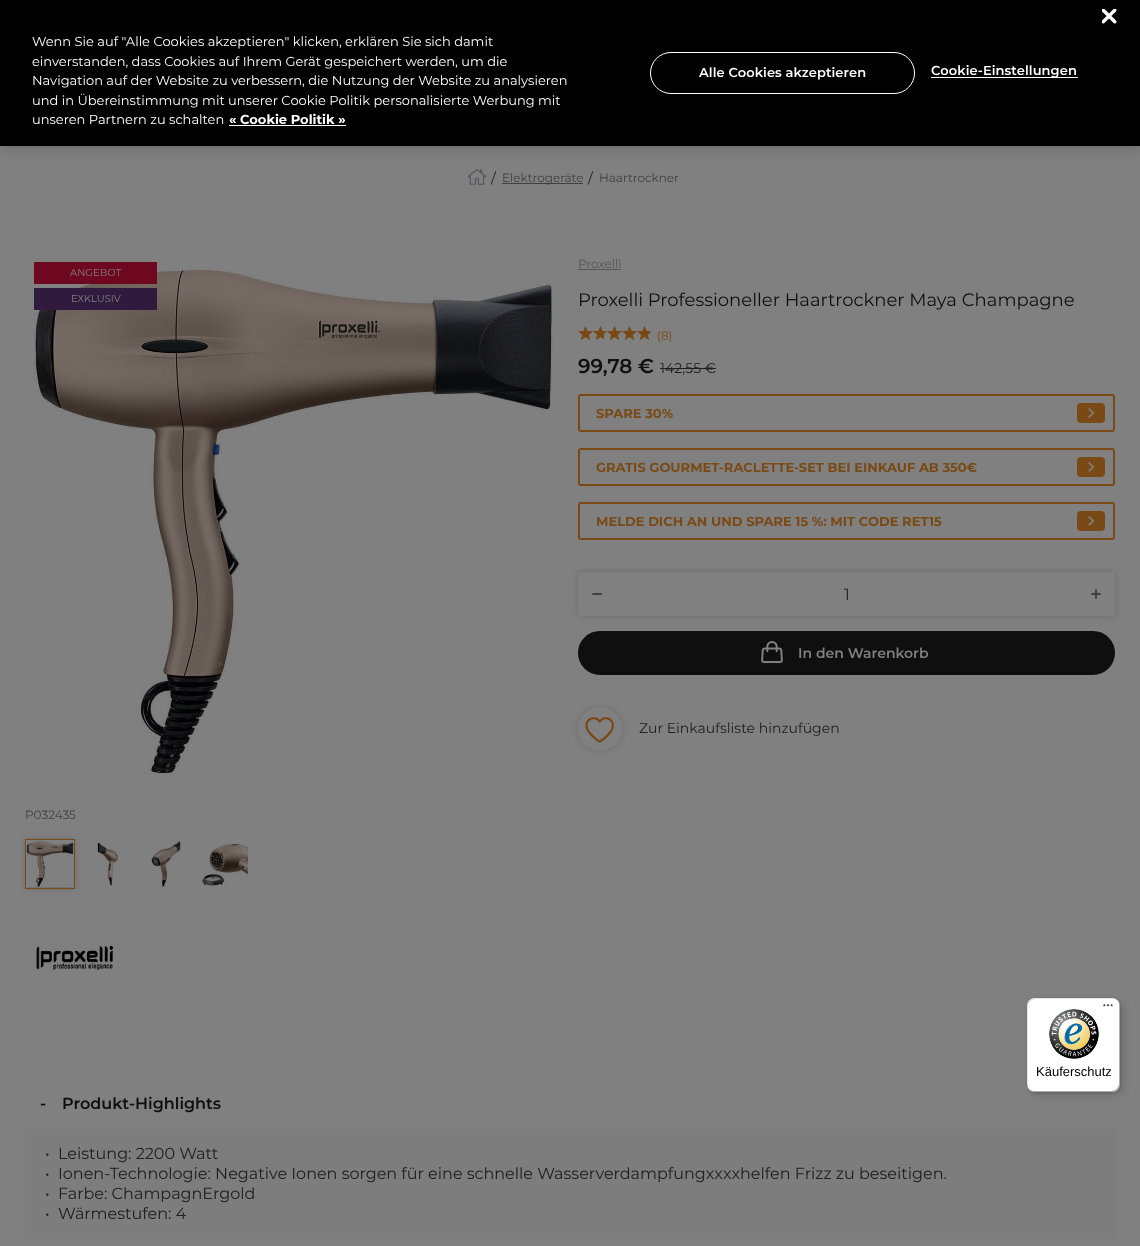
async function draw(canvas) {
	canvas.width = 1140;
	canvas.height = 1246;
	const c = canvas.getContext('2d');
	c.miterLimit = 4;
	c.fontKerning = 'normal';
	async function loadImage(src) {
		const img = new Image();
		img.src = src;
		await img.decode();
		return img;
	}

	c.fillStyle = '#808080';
	c.fillRect(0, 0, 1140, 1246);
	c.fillStyle = '#7b7b7b';
	c.fillRect(0, 146, 1140, 1);
	c.drawImage(await loadImage('img2.png'), 468, 169, 18, 16);
	c.fillStyle = '#00000033';
	c.filter = 'blur(9px)';
	c.beginPath();
	c.rect(0, 0, 1140, 146);
	c.fill();
	c.filter = 'none';
	c.fillStyle = '#000';
	c.fillRect(0, 0, 1140, 146);
	c.drawImage(await loadImage('img1.png'), 1102, 9, 15, 15);
	c.font = '13px Montserrat';
	c.fillStyle = '#fff';
	for (const [text, x, y] of [
		['Wenn Sie auf "Alle Cookies akzeptieren" klicken, erklären Sie sich damit', 32, 46],
		['einverstanden, dass Cookies auf Ihrem Gerät gespeichert werden, um die', 32, 66],
		['Navigation auf der Website zu verbessern, die Nutzung der Website zu analysieren', 32, 85],
		['und in Übereinstimmung mit unserer Cookie Politik personalisierte Werbung mit', 32, 105],
		['unseren Partnern zu schalten', 32, 124],
	]) {
		c.fillText(text, x, y);
	}
	c.font = 'bold 13px Montserrat';
	c.fillText('« Cookie Politik »', 229, 124);
	c.fillRect(229, 125, 117, 1);
	c.beginPath();
	c.roundRect(650.5, 52.5, 264, 41, 20.5);
	c.strokeStyle = '#fff';
	c.stroke();
	c.letterSpacing = '0.1px';
	c.font = '600 13px Montserrat';
	c.fillText('Alle Cookies akzeptieren', 699, 77);
	c.fillRect(931, 77, 147, 1);
	c.fillText('Cookie-Einstellungen', 931, 75);
	c.letterSpacing = '0px';
	c.font = '14px Montserrat';
	c.fillStyle = '#202020';
	c.fillText('/', 491, 183);
	c.fillStyle = '#404040';
	c.fillRect(502, 183, 81, 1);
	c.font = '12px Montserrat';
	c.fillText('Elektrogeräte', 502, 182);
	c.font = '14px Montserrat';
	c.fillStyle = '#1a1a1a';
	c.fillText('/', 588, 183);
	c.font = '12px Montserrat';
	c.fillStyle = '#404040';
	c.fillText('Haartrockner', 599, 182);
	c.drawImage(await loadImage('img3.png'), 34, 269, 519, 505);
	c.fillStyle = '#6e0820';
	c.fillRect(34, 262, 123, 22);
	c.font = '10px Montserrat';
	c.fillStyle = '#808080';
	c.fillText('ANGEBOT', 70, 276);
	c.fillStyle = '#301b3e';
	c.fillRect(34, 288, 123, 22);
	c.fillStyle = '#808080';
	c.fillText('EXKLUSIV', 71, 302);
	c.font = '12px Montserrat';
	c.fillStyle = '#404040';
	c.fillText('P032435', 25, 819);
	c.fillStyle = '#00000029';
	c.filter = 'blur(3px)';
	c.beginPath();
	c.rect(25, 839, 50, 50);
	c.fill();
	c.filter = 'none';
	c.strokeStyle = '#794916';
	c.strokeRect(25.5, 839.5, 49, 49);
	c.drawImage(await loadImage('img4.png'), 26, 840, 48, 47);
	c.drawImage(await loadImage('img5.png'), 97, 842, 22, 44);
	c.drawImage(await loadImage('img6.png'), 151, 841, 30, 46);
	c.drawImage(await loadImage('img7.png'), 202, 843, 46, 43);
	c.drawImage(await loadImage('img8.png'), 36, 945, 78, 25);
	c.fillStyle = '#565556';
	c.fillText('Proxelli', 578, 268);
	c.fillRect(578, 269, 43, 1);
	c.font = '18px Montserrat';
	c.fillStyle = '#100f0f';
	c.fillText('Proxelli Professioneller Haartrockner Maya Champagne', 578, 306);
	c.drawImage(await loadImage('img9.png'), 578, 326, 73, 14);
	c.drawImage(await loadImage('img10.png'), 578, 326, 72, 14);
	c.font = '12px Montserrat';
	c.fillStyle = '#794916';
	c.fillText('(8)', 657, 340);
	c.font = '600 20px Montserrat';
	c.fillStyle = '#100f0f';
	c.fillText('99,78 €', 578, 373);
	c.font = '14px Montserrat';
	c.fillStyle = '#202020';
	c.fillText('142,55 €', 660, 373);
	c.fillRect(660, 368, 56, 1);
	c.beginPath();
	c.roundRect(579, 395, 535, 36, 2);
	c.lineWidth = 2;
	c.stroke();
	c.font = 'bold 13px Montserrat';
	c.fillStyle = '#794916';
	c.fillText('SPARE 30%', 596, 418);
	c.beginPath();
	c.roundRect(1077, 403, 28, 20, 4);
	c.fill();
	c.drawImage(await loadImage('img11.png'), 1088, 408, 7, 10);
	c.beginPath();
	c.roundRect(579, 449, 535, 36, 2);
	c.stroke();
	c.fillText('GRATIS GOURMET-RACLETTE-SET BEI EINKAUF AB 350€', 596, 472);
	c.beginPath();
	c.roundRect(1077, 457, 28, 20, 4);
	c.fill();
	c.drawImage(await loadImage('img11.png'), 1088, 462, 7, 10);
	c.beginPath();
	c.roundRect(579, 503, 535, 36, 2);
	c.stroke();
	c.fillText('MELDE DICH AN UND SPARE 15 %: MIT CODE RET15', 596, 526);
	c.beginPath();
	c.roundRect(1077, 511, 28, 20, 4);
	c.fill();
	c.drawImage(await loadImage('img11.png'), 1088, 516, 7, 10);
	c.fillStyle = '#00000029';
	c.filter = 'blur(3px)';
	c.beginPath();
	c.roundRect(578, 572, 537, 44, 3);
	c.fill();
	c.filter = 'none';
	c.fillStyle = '#808080';
	c.beginPath();
	c.roundRect(578, 572, 537, 44, 3);
	c.fill();
	c.beginPath();
	c.moveTo(593, 594);
	c.lineTo(601, 594);
	c.strokeStyle = '#404040';
	c.lineWidth = 1.9;
	c.lineCap = 'round';
	c.stroke();
	c.font = '16px Montserrat';
	c.fillStyle = '#202020';
	c.fillText('1', 844, 600);
	c.beginPath();
	c.moveTo(1092, 594);
	c.lineTo(1100, 594);
	c.moveTo(1096, 598);
	c.lineTo(1096, 590);
	c.stroke();
	c.fillStyle = '#100f0f';
	c.beginPath();
	c.roundRect(579, 632, 535, 42, 21);
	c.fill();
	c.strokeStyle = '#100f0f';
	c.lineWidth = 2;
	c.stroke();
	c.drawImage(await loadImage('img12.png'), 761, 641, 22, 22);
	c.font = '600 14px Montserrat';
	c.fillStyle = '#808080';
	c.fillText('In den Warenkorb', 798, 658);
	c.fillStyle = '#00000029';
	c.filter = 'blur(3px)';
	c.beginPath();
	c.roundRect(578, 707, 44, 44, 22);
	c.fill();
	c.filter = 'none';
	c.fillStyle = '#808080';
	c.beginPath();
	c.arc(600, 729, 22, 0, 2 * Math.PI);
	c.fill();
	c.drawImage(await loadImage('img13.png'), 585, 717, 29, 26);
	c.font = '14px Montserrat';
	c.fillStyle = '#202020';
	c.fillText('Zur Einkaufsliste hinzufügen', 639, 733);
	c.font = '600 16px Montserrat';
	c.fillStyle = '#100f0f';
	c.fillText('-', 40, 1109);
	c.fillText('Produkt-Highlights', 62, 1109);
	c.fillStyle = '#7d7d7d';
	c.fillRect(25, 1129, 1090, 110);
	c.font = '16px Montserrat';
	c.fillStyle = '#202020';
	for (const [text, x, y] of [
		['•', 45, 1159],
		['Leistung: 2200 Watt', 58, 1159],
		['•', 45, 1179],
		['Ionen-Technologie: Negative Ionen sorgen für eine schnelle Wasserverdampfungxxxxhelfen Frizz zu beseitigen.', 58, 1179],
		['•', 45, 1199],
		['Farbe: ChampagnErgold', 58, 1199],
		['•', 45, 1219],
		['Wärmestufen: 4', 58, 1219],
	]) {
		c.fillText(text, x, y);
	}
	c.fillStyle = '#00000026';
	c.filter = 'blur(4px)';
	c.beginPath();
	c.roundRect(1030, 1001, 93, 94, 8);
	c.fill();
	c.filter = 'none';
	c.filter = 'blur(1px)';
	c.beginPath();
	c.roundRect(1028, 999, 93, 94, 8);
	c.fill();
	c.filter = 'none';
	c.fillStyle = '#fff';
	c.beginPath();
	c.roundRect(1027, 998, 93, 94, 8);
	c.fill();
	c.fillStyle = '#0000001a';
	c.beginPath();
	c.moveTo(1036, 999);
	c.lineTo(1113, 999);
	c.bezierCurveTo(1115, 999, 1117, 1000, 1119, 1002);
	c.bezierCurveTo(1117, 1000, 1115, 998, 1112, 998);
	c.lineTo(1035, 998);
	c.bezierCurveTo(1031, 998, 1027, 1002, 1027, 1006);
	c.lineTo(1027, 1084);
	c.bezierCurveTo(1027, 1087, 1029, 1089, 1031, 1091);
	c.bezierCurveTo(1029, 1089, 1028, 1087, 1028, 1085);
	c.lineTo(1028, 1007);
	c.bezierCurveTo(1028, 1003, 1032, 999, 1036, 999);
	c.closePath();
	c.fill();
	c.fillStyle = '#00000033';
	c.beginPath();
	c.moveTo(1028, 1088);
	c.bezierCurveTo(1030, 1090, 1032, 1092, 1035, 1092);
	c.lineTo(1112, 1092);
	c.bezierCurveTo(1116, 1092, 1120, 1088, 1120, 1084);
	c.lineTo(1120, 1006);
	c.bezierCurveTo(1120, 1003, 1118, 1001, 1116, 999);
	c.bezierCurveTo(1118, 1001, 1119, 1003, 1119, 1005);
	c.lineTo(1119, 1083);
	c.bezierCurveTo(1119, 1087, 1115, 1091, 1111, 1091);
	c.lineTo(1034, 1091);
	c.bezierCurveTo(1032, 1091, 1030, 1090, 1028, 1088);
	c.closePath();
	c.fill();
	c.fillStyle = '#32323233';
	c.beginPath();
	c.moveTo(1029, 1089);
	c.bezierCurveTo(1030, 1091, 1033, 1092, 1035, 1092);
	c.lineTo(1112, 1092);
	c.bezierCurveTo(1116, 1092, 1120, 1088, 1120, 1084);
	c.lineTo(1120, 1006);
	c.bezierCurveTo(1120, 1004, 1119, 1001, 1117, 1000);
	c.bezierCurveTo(1118, 1001, 1119, 1003, 1119, 1005);
	c.lineTo(1119, 1083);
	c.bezierCurveTo(1119, 1088, 1116, 1091, 1111, 1091);
	c.lineTo(1034, 1091);
	c.bezierCurveTo(1032, 1091, 1030, 1090, 1029, 1089);
	c.closePath();
	c.fill();
	c.drawImage(await loadImage('img14.png'), 1103, 1004, 10, 3);
	c.fillStyle = '#ffffff4d';
	c.beginPath();
	c.moveTo(1112, 1092);
	c.bezierCurveTo(1116.5, 1092, 1120, 1088.5, 1120, 1084);
	c.bezierCurveTo(1120, 1088, 1116, 1092, 1112, 1092);
	c.closePath();
	c.fill();
	c.drawImage(await loadImage('img15.png'), 1049, 1009, 50, 50);
	c.font = '13px Liberation Sans';
	c.fillStyle = '#000';
	c.fillText('Käuferschutz', 1036, 1076);
}

draw(document.querySelector('canvas'));
